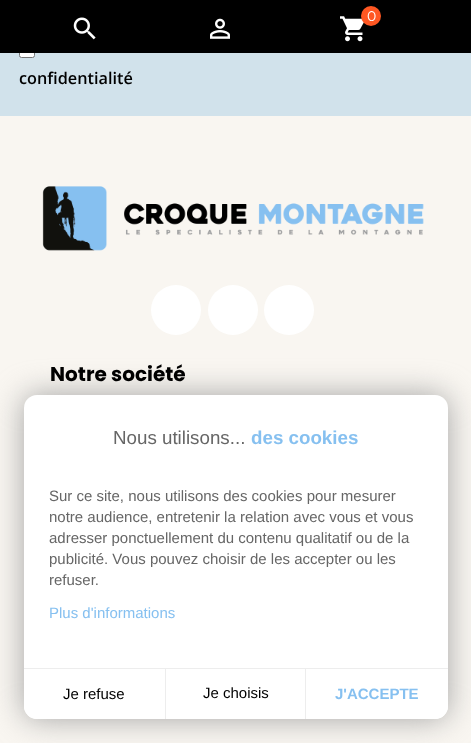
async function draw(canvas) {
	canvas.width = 471;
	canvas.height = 743;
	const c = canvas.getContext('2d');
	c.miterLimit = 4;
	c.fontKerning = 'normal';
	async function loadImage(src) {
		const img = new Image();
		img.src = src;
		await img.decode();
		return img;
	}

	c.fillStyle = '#d1e2eb';
	c.fillRect(0, 0, 471, 743);
	c.fillStyle = '#fff';
	c.beginPath();
	c.roundRect(19.5, 41.5, 15, 16, 2);
	c.fill();
	c.strokeStyle = '#767676';
	c.stroke();
	c.fillStyle = '#000';
	c.fillRect(0, 0, 471, 53);
	c.drawImage(await loadImage('img1.png'), 73, 17, 23, 23);
	c.drawImage(await loadImage('img2.png'), 210, 18, 20, 21);
	c.drawImage(await loadImage('img3.png'), 340, 16, 24, 26);
	c.fillStyle = '#ff5722';
	c.beginPath();
	c.arc(371, 16, 10, 0, 2 * Math.PI);
	c.fill();
	c.font = '14px Montserrat';
	c.fillStyle = '#fff';
	c.fillText('0', 367, 21);
	c.fillStyle = '#f9f6f1';
	c.fillRect(0, 116, 471, 627);
	c.fillStyle = '#a3a3a3';
	c.filter = 'blur(15.5px)';
	c.beginPath();
	c.roundRect(24, 395, 424, 324, 13);
	c.fill();
	c.filter = 'none';
	c.fillStyle = '#fff';
	c.beginPath();
	c.roundRect(24, 395, 424, 324, 13);
	c.fill();
	c.font = '18.75px Liberation Sans';
	c.fillStyle = '#666';
	c.fillText('Nous utilisons...', 113, 444);
	c.font = 'bold 18.75px Liberation Sans';
	c.fillStyle = '#86c0f0';
	c.fillText('des cookies', 251, 444);
	c.font = '15px Liberation Sans';
	c.fillStyle = '#666';
	for (const [text, x, y] of [
		['Sur ce site, nous utilisons des cookies pour mesurer', 49, 501],
		['notre audience, entretenir la relation avec vous et vous', 49, 522],
		['adresser ponctuellement du contenu qualitatif ou de la', 49, 543],
		['publicité. Vous pouvez choisir de les accepter ou les', 49, 564],
		['refuser.', 49, 585],
	]) {
		c.fillText(text, x, y);
	}
	c.fillStyle = '#86c0f0';
	c.fillText('Plus d\'informations', 49, 618);
	c.fillStyle = '#ededed';
	c.fillRect(24, 668, 424, 1);
	c.fillStyle = '#fff';
	c.beginPath();
	c.roundRect(24, 669, 141, 50, [0, 0, 0, 13]);
	c.fill();
	c.fillStyle = '#000';
	c.fillText('Je refuse', 63, 699);
	c.fillStyle = '#ededed';
	c.fillRect(305, 669, 1, 50);
	c.fillRect(165, 669, 1, 50);
	c.fillStyle = '#000';
	c.fillText('Je choisis', 203, 698);
	c.fillStyle = '#fff';
	c.beginPath();
	c.roundRect(306, 669, 142, 50, [0, 0, 13, 0]);
	c.fill();
	c.font = 'bold 15px Liberation Sans';
	c.fillStyle = '#86c0f0';
	c.fillText('J\'ACCEPTE', 335, 699);
	c.font = '600 16.25px Open Sans';
	c.fillStyle = '#000';
	c.fillText('confidentialité', 19, 84);
	c.drawImage(await loadImage('img4.png'), 42, 186, 382, 65);
	c.fillStyle = '#fff';
	c.beginPath();
	c.arc(176, 310, 25, 0, 2 * Math.PI);
	c.fill();
	c.beginPath();
	c.arc(233, 310, 25, 0, 2 * Math.PI);
	c.fill();
	c.beginPath();
	c.arc(289, 310, 25, 0, 2 * Math.PI);
	c.fill();
	c.font = 'bold 20px Poppins';
	c.fillStyle = '#000';
	c.fillText('Notre société', 50, 381);
}

draw(document.querySelector('canvas'));
